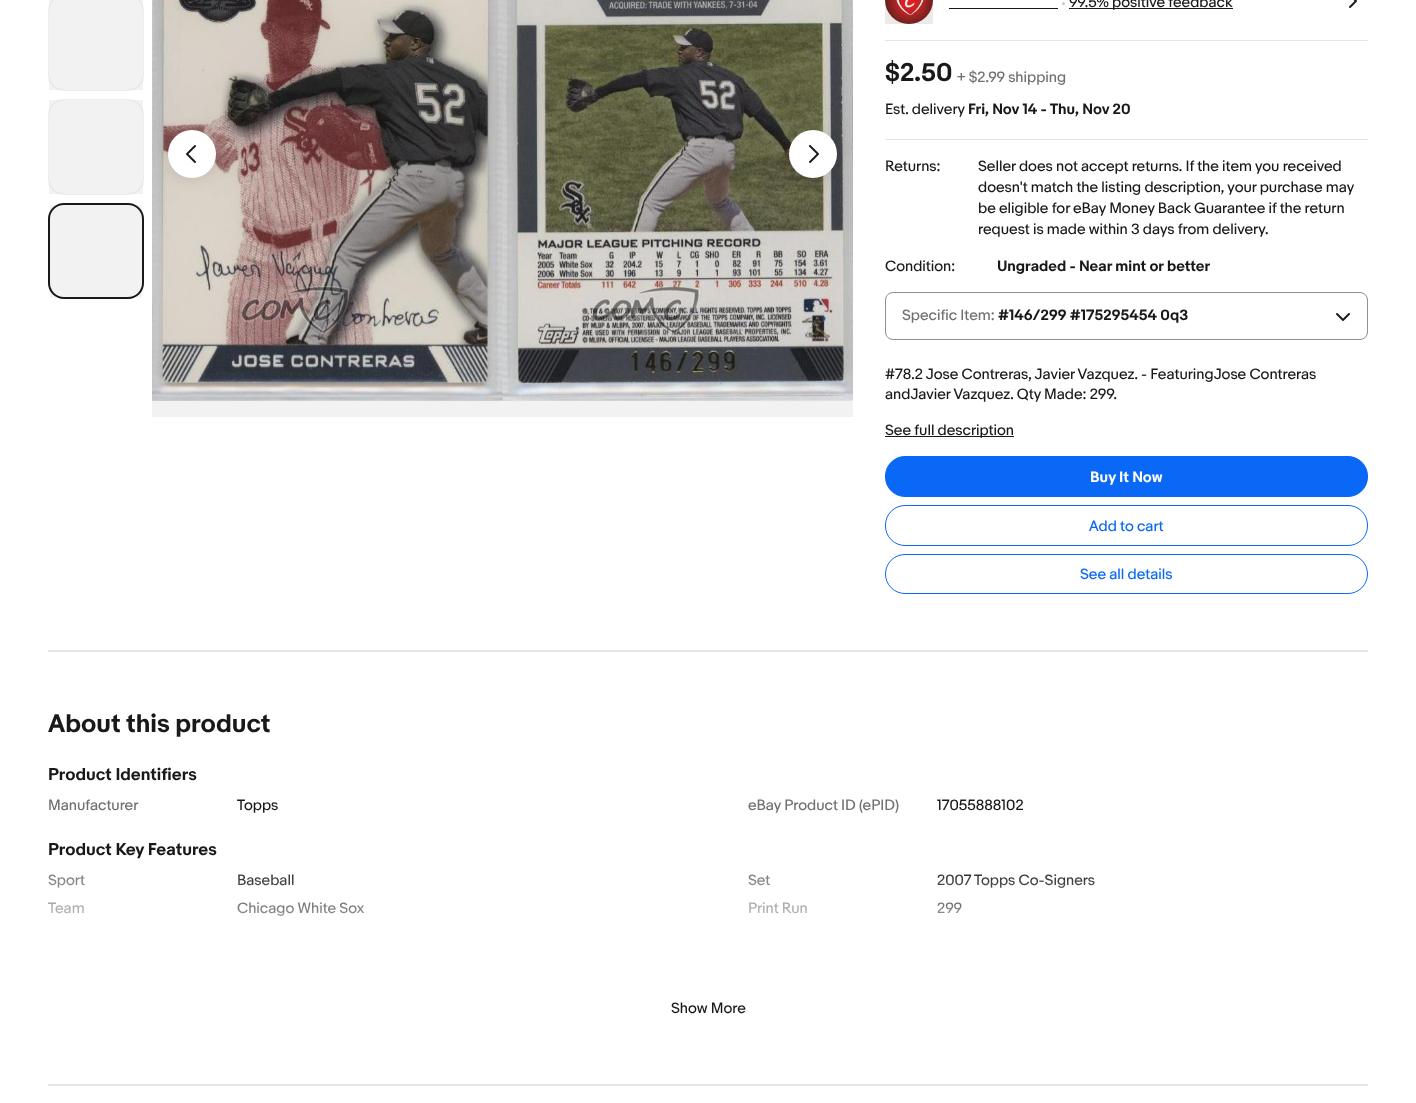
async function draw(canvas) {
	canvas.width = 1416;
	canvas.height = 1103;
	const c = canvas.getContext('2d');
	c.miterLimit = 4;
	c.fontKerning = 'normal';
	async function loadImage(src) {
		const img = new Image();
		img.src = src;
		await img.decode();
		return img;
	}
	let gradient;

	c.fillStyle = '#fff';
	c.fillRect(0, 0, 1416, 1103);
	c.beginPath();
	c.roundRect(48.5, -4.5, 95, 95, 15.5);
	c.strokeStyle = '#ededed';
	c.stroke();
	c.fillStyle = '#0000000d';
	c.fillRect(49, 0, 94, 90);
	c.beginPath();
	c.roundRect(48.5, 99.5, 95, 95, 15.5);
	c.stroke();
	c.fillRect(49, 100, 94, 94);
	c.beginPath();
	c.roundRect(49, 204, 94, 94, 15);
	c.strokeStyle = '#191919';
	c.lineWidth = 2;
	c.stroke();
	c.fillRect(50, 205, 92, 92);
	c.drawImage(await loadImage('img1.png'), 152, 0, 701, 401);
	c.fillRect(152, 0, 701, 417);
	c.fillStyle = '#00000012';
	c.filter = 'blur(6px)';
	c.beginPath();
	c.roundRect(168, 134, 48, 48, 24);
	c.fill();
	c.filter = 'none';
	c.fillStyle = '#fff';
	c.beginPath();
	c.arc(192, 154, 24, 0, 2 * Math.PI);
	c.fill();
	c.drawImage(await loadImage('img2.png'), 186, 145, 10, 18);
	c.fillStyle = '#00000012';
	c.filter = 'blur(6px)';
	c.beginPath();
	c.roundRect(789, 134, 48, 48, 24);
	c.fill();
	c.filter = 'none';
	c.fillStyle = '#fff';
	c.beginPath();
	c.arc(813, 154, 24, 0, 2 * Math.PI);
	c.fill();
	c.drawImage(await loadImage('img3.png'), 809, 145, 10, 18);
	c.fillStyle = '#e5e5e5';
	c.fillRect(885, 40, 483, 1);
	c.drawImage(await loadImage('img4.png'), 885, 0, 48, 24);
	c.fillStyle = '#0000000d';
	c.fillRect(885, 0, 48, 24);
	gradient = c.createRadialGradient(909, 0, 0, 909, 0, 24);
	gradient.addColorStop(0.52, '#00000000');
	gradient.addColorStop(1, '#00000008');
	c.fillStyle = gradient;
	c.fillRect(885, 0, 48, 24);
	c.fillStyle = '#191919';
	c.fillRect(949, 8, 109, 1);
	c.fillStyle = '#c7c7c7';
	c.beginPath();
	c.arc(1063.5, 3.5, 1.5, 0, 2 * Math.PI);
	c.fill();
	c.fillStyle = '#191919';
	c.fillRect(1069, 8, 164, 1);
	c.font = '14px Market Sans';
	c.fillText('99.5% positive feedback', 1069, 7);
	c.drawImage(await loadImage('img5.png'), 1349, 0, 8, 8);
	c.fillStyle = '#e5e5e5';
	c.fillRect(885, 139, 483, 1);
	c.font = 'bold 24px Market Sans';
	c.fillStyle = '#191919';
	c.fillText('$2.50', 885, 81);
	c.font = '14px Market Sans';
	c.fillStyle = '#707070';
	c.fillText('+ $2.99 shipping', 957, 82);
	c.fillStyle = '#191919';
	c.fillText('Est. delivery', 885, 114);
	c.font = 'bold 14px Market Sans';
	c.fillText('Fri, Nov 14 - Thu, Nov 20', 968, 114);
	c.font = '14px Market Sans';
	for (const [text, x, y] of [
		['Returns:', 885, 171],
		['Seller does not accept returns. If the item you received', 978, 171],
		['doesn\'t match the listing description, your purchase may', 978, 192],
		['be eligible for eBay Money Back Guarantee if the return', 978, 213],
		['request is made within 3 days from delivery.', 978, 234],
		['Condition:', 885, 271],
	]) {
		c.fillText(text, x, y);
	}
	c.font = 'bold 14px Market Sans';
	c.fillText('Ungraded - Near mint or better', 997, 271);
	c.beginPath();
	c.roundRect(885.5, 292.5, 482, 47, 7.5);
	c.strokeStyle = '#8f8f8f';
	c.lineWidth = 1;
	c.stroke();
	c.font = '14px Market Sans';
	c.fillStyle = '#707070';
	c.fillText('Specific Item:', 902, 320);
	c.font = 'bold 14px Market Sans';
	c.fillStyle = '#191919';
	c.fillText('#146/299 #175295454 0q3', 998, 320);
	c.drawImage(await loadImage('img6.png'), 1336, 313, 14, 8);
	c.font = '14px Market Sans';
	c.fillText('#78.2 Jose Contreras, Javier Vazquez. - FeaturingJose Contreras', 885, 379);
	c.fillText('andJavier Vazquez. Qty Made: 299.', 885, 399);
	c.fillRect(885, 436, 129, 1);
	c.fillText('See full description', 885, 435);
	c.fillStyle = '#0968f6';
	c.beginPath();
	c.roundRect(885.5, 456.5, 482, 40, 19.5);
	c.fill();
	c.strokeStyle = '#0968f6';
	c.stroke();
	c.font = 'bold 14px Market Sans';
	c.fillStyle = '#fff';
	c.fillText('Buy It Now', 1090, 482);
	c.beginPath();
	c.roundRect(885.5, 505.5, 482, 40, 19.5);
	c.stroke();
	c.font = '14px Market Sans';
	c.fillStyle = '#0968f6';
	c.fillText('Add to cart', 1089, 531);
	c.beginPath();
	c.roundRect(885.5, 554.5, 482, 39, 19.5);
	c.stroke();
	c.fillText('See all details', 1080, 579);
	c.fillStyle = '#e5e5e5';
	c.fillRect(48, 650, 1320, 2);
	c.font = 'bold 24px Market Sans';
	c.fillStyle = '#191919';
	c.fillText('About this product', 48, 732);
	c.font = 'bold 16px Market Sans';
	c.fillText('Product Identifiers', 48, 780);
	c.font = '14px Market Sans';
	c.fillStyle = '#707070';
	c.fillText('Manufacturer', 48, 810);
	c.fillStyle = '#191919';
	c.fillText('Topps', 237, 810);
	c.fillStyle = '#707070';
	c.fillText('eBay Product ID (ePID)', 748, 810);
	c.fillStyle = '#191919';
	c.fillText('17055888102', 937, 810);
	c.font = 'bold 16px Market Sans';
	c.fillText('Product Key Features', 48, 855);
	c.font = '14px Market Sans';
	c.fillStyle = '#707070';
	c.fillText('Sport', 48, 885);
	c.fillStyle = '#191919';
	c.fillText('Baseball', 237, 885);
	c.fillStyle = '#707070';
	c.fillText('Set', 748, 885);
	c.fillStyle = '#191919';
	c.fillText('2007 Topps Co-Signers', 937, 885);
	c.fillStyle = '#707070';
	c.fillText('Team', 48, 913);
	c.fillStyle = '#191919';
	c.fillText('Chicago White Sox', 237, 913);
	c.fillStyle = '#707070';
	c.fillText('Print Run', 748, 913);
	c.fillStyle = '#191919';
	c.fillText('299', 937, 913);
	gradient = c.createLinearGradient(708, 964, 708, 864);
	gradient.addColorStop(0, '#fff');
	gradient.addColorStop(1, '#ffffff00');
	c.fillStyle = gradient;
	c.fillRect(48, 874, 1047, 42);
	c.fillStyle = '#191919';
	c.fillText('Show More', 671, 1013);
	c.fillStyle = '#e5e5e5';
	c.fillRect(48, 1084, 1320, 2);
}

draw(document.querySelector('canvas'));
